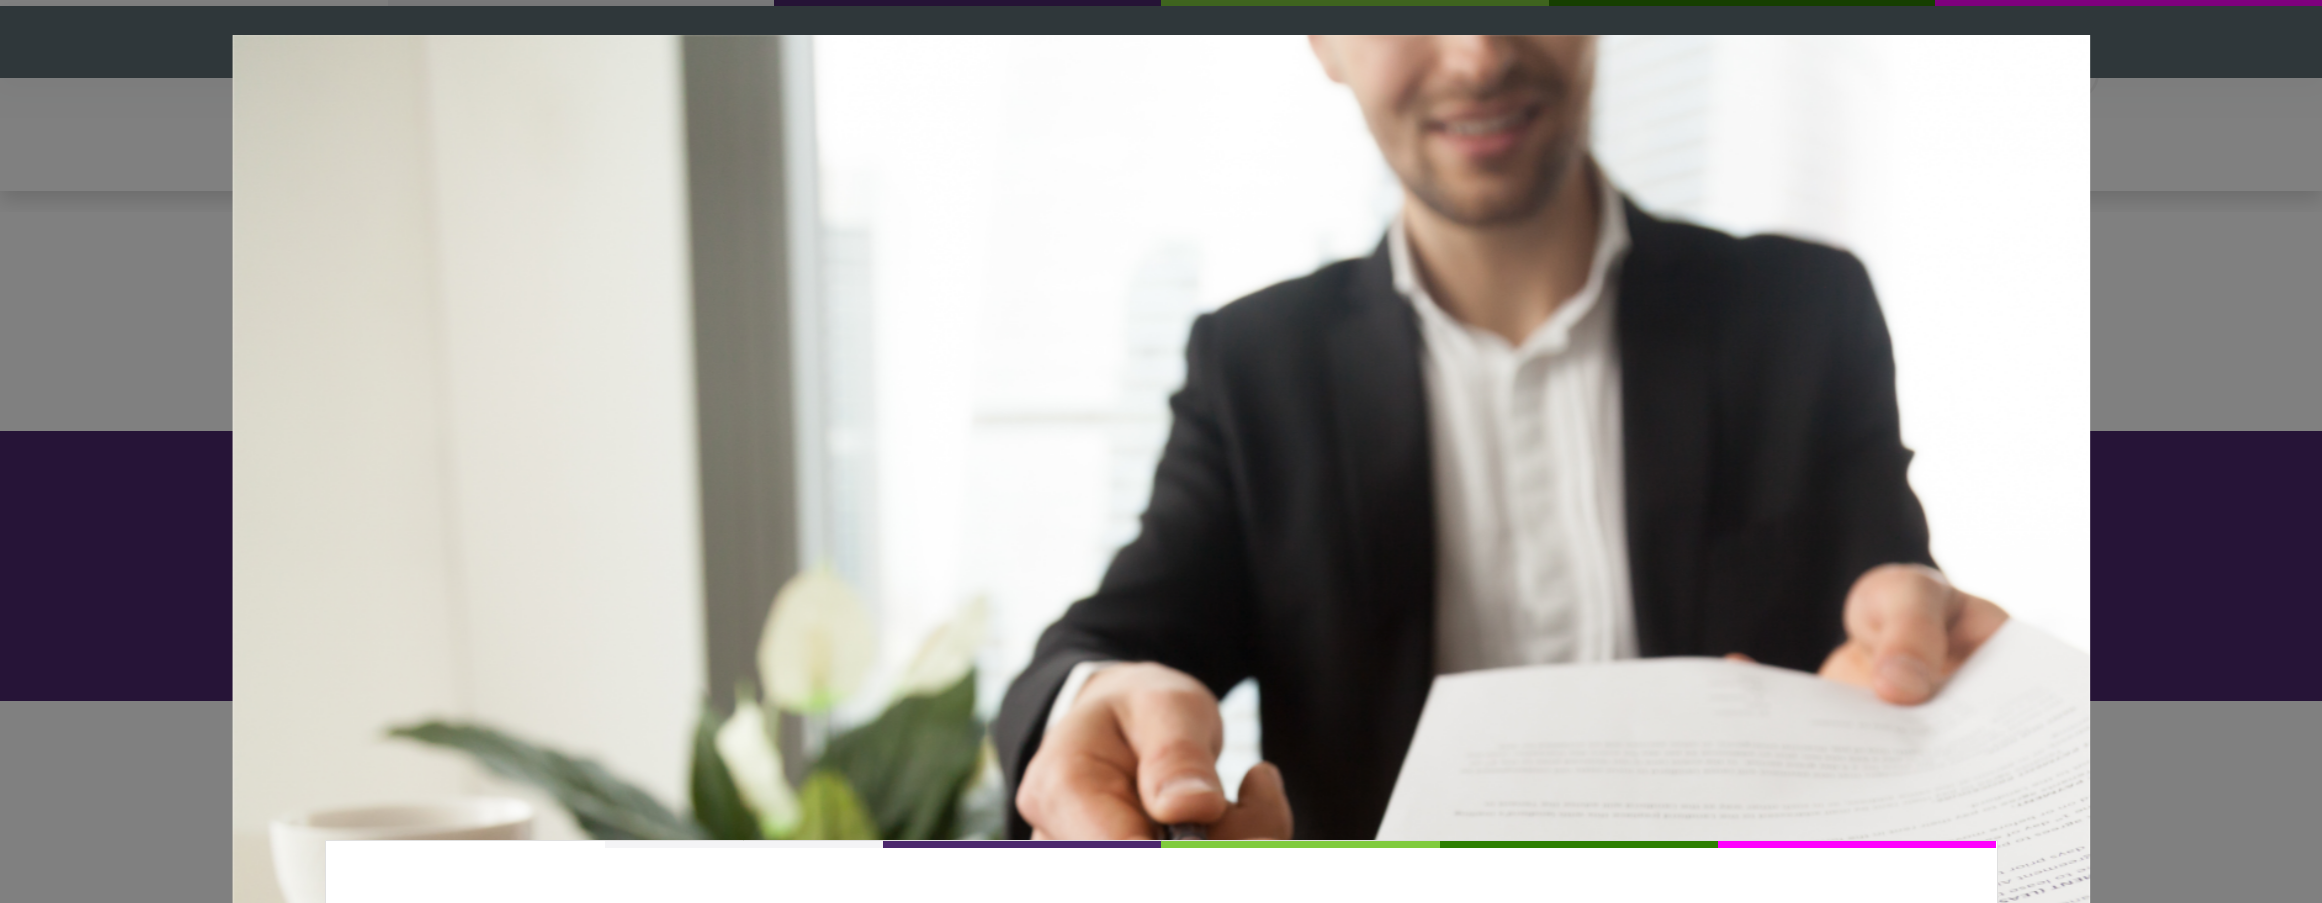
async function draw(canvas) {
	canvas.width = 2322;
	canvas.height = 903;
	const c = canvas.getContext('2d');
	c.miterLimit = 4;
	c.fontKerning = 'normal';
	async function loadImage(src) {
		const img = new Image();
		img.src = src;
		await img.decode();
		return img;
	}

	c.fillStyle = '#808080';
	c.fillRect(0, 0, 2322, 903);
	for (const [x, y, w, h, color] of [
		[388, 0, 386, 6, '#7a7a7b'],
		[774, 0, 387, 6, '#261437'],
		[1161, 0, 388, 6, '#40661f'],
		[1549, 0, 386, 6, '#174001'],
		[1935, 0, 387, 6, '#80007f'],
		[0, 78, 2322, 40, '#787a7a'],
	]) {
		c.fillStyle = color;
		c.fillRect(x, y, w, h);
	}
	c.fillStyle = '#808080';
	c.beginPath();
	c.roundRect(1625.5, 49.5, 472, 49, 24.5);
	c.fill();
	c.strokeStyle = '#515151';
	c.lineWidth = 3;
	c.stroke();
	c.fillStyle = '#00000026';
	c.filter = 'blur(10px)';
	c.beginPath();
	c.rect(0, 16, 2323, 72);
	c.fill();
	c.filter = 'none';
	c.save();
	c.beginPath();
	c.rect(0, 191, 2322, 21);
	c.clip();
	c.filter = 'blur(10px)';
	c.beginPath();
	c.rect(0, 88, 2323, 113);
	c.fill();
	c.filter = 'none';
	c.restore();
	for (const [x, y, w, h, color] of [
		[0, 6, 2322, 72, '#2f373a'],
		[0, 78, 2322, 40, '#808080d9'],
		[0, 431, 2322, 270, '#261437'],
		[233, 35, 1857, 868, '#fff'],
	]) {
		c.fillStyle = color;
		c.fillRect(x, y, w, h);
	}
	c.drawImage(await loadImage('img1.png'), 232, 35, 1859, 868);
	c.beginPath();
	c.rect(325.5, 840.5, 1672, 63);
	c.fill();
	c.strokeStyle = '#dfdfdf';
	c.lineWidth = 1;
	c.stroke();
	for (const [x, y, w, h, color] of [
		[605, 841, 278, 7, '#f4f4f6'],
		[883, 841, 278, 7, '#4b286d'],
		[1161, 841, 279, 7, '#80cb3d'],
		[1440, 841, 278, 7, '#2d7f01'],
		[1718, 841, 278, 7, '#ff00fe'],
	]) {
		c.fillStyle = color;
		c.fillRect(x, y, w, h);
	}
}

draw(document.querySelector('canvas'));
